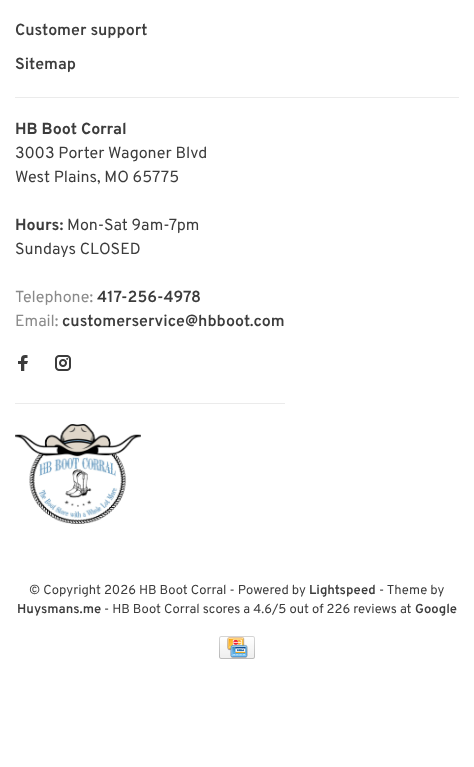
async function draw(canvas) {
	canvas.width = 474;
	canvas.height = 767;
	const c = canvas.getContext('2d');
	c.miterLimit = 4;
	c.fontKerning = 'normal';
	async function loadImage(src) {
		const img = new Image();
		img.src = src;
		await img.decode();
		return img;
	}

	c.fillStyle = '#fff';
	c.fillRect(0, 0, 474, 767);
	c.fillStyle = '#ebebeb';
	c.fillRect(15, 97, 444, 1);
	c.font = '600 16px Overpass';
	c.fillStyle = '#3c3c3c';
	c.fillText('Customer support', 15, 35);
	c.fillText('Sitemap', 15, 69);
	c.font = 'bold 16px Overpass';
	c.fillText('HB Boot Corral', 15, 134);
	c.font = '16px Overpass';
	c.fillText('3003 Porter Wagoner Blvd', 15, 158);
	c.fillText('West Plains, MO 65775', 15, 182);
	c.font = 'bold 16px Overpass';
	c.fillText('Hours:', 15, 230);
	c.font = '16px Overpass';
	c.fillText('Mon-Sat 9am-7pm', 67, 230);
	c.fillText('Sundays CLOSED', 15, 254);
	c.fillStyle = '#8a8a8a';
	c.fillText('Telephone:', 15, 302);
	c.font = '600 16px Overpass';
	c.fillStyle = '#3c3c3c';
	c.fillText('417-256-4978', 97, 302);
	c.font = '16px Overpass';
	c.fillStyle = '#8a8a8a';
	c.fillText('Email:', 15, 326);
	c.font = '600 16px Overpass';
	c.fillStyle = '#3c3c3c';
	c.fillText('customerservice@hbboot.com', 62, 326);
	c.fillStyle = '#ebebeb';
	c.fillRect(15, 403, 270, 1);
	c.drawImage(await loadImage('img1.png'), 18, 355, 10, 16);
	c.drawImage(await loadImage('img2.png'), 55, 355, 16, 16);
	c.drawImage(await loadImage('img3.png'), 15, 424, 126, 100);
	c.font = '13px Overpass';
	c.fillStyle = '#3c3c3c';
	c.fillText('© Copyright 2026 HB Boot Corral - Powered by', 29, 594);
	c.font = '600 13px Overpass';
	c.fillText('Lightspeed', 309, 594);
	c.font = '13px Overpass';
	c.fillText('- Theme by', 379, 594);
	c.font = '600 13px Overpass';
	c.fillText('Huysmans.me', 17, 613);
	c.font = '13px Overpass';
	c.fillText('- HB Boot Corral scores a 4.6/5 out of 226 reviews at', 104, 613);
	c.font = '600 13px Overpass';
	c.fillText('Google', 415, 613);
	c.drawImage(await loadImage('img4.png'), 219, 636, 36, 23);
}

draw(document.querySelector('canvas'));
